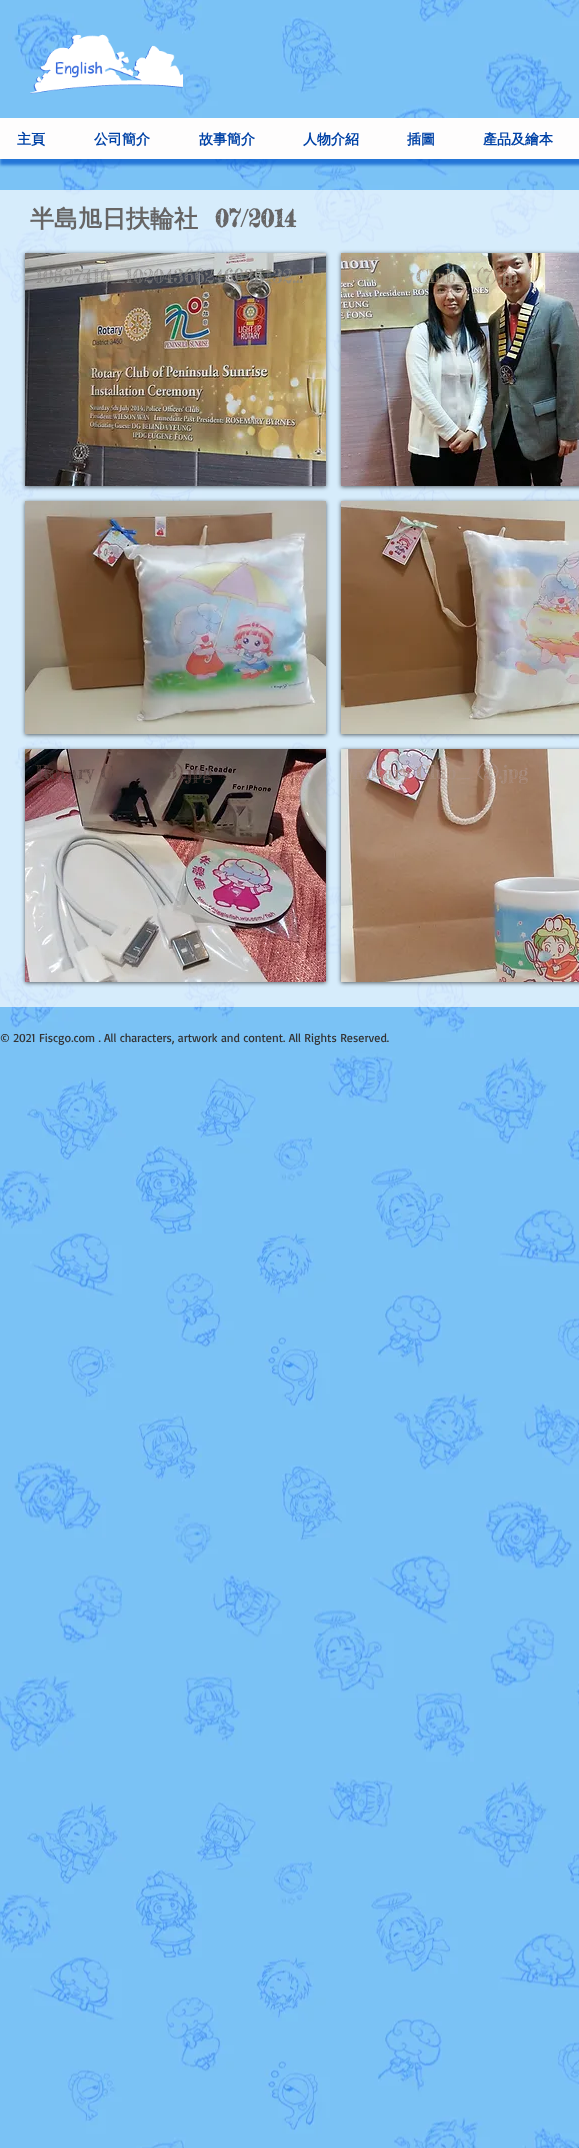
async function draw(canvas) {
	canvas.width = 579;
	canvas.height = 2148;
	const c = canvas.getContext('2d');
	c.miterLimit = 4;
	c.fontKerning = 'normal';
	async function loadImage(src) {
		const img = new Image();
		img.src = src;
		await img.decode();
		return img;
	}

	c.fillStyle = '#fff';
	c.fillRect(0, 0, 579, 2148);
	c.drawImage(await loadImage('img1.png'), 0, 0, 579, 2148);
	c.drawImage(await loadImage('img2.png'), 30, 34, 153, 60);
	c.fillStyle = '#0055cbb3';
	c.filter = 'blur(1.5px)';
	c.beginPath();
	c.rect(0, 124, 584, 41);
	c.fill();
	c.filter = 'none';
	c.fillStyle = '#fefdfd';
	c.fillRect(0, 118, 579, 41);
	c.font = 'bold 14px WenQuanYi Zen Hei';
	c.fillStyle = '#0042a6';
	for (const [text, x, y] of [
		['主頁', 17, 144],
		['公司簡介', 94, 144],
		['故事簡介', 199, 144],
		['人物介紹', 303, 144],
		['插圖', 407, 144],
		['產品及繪本', 483, 144],
	]) {
		c.fillText(text, x, y);
	}
	c.fillStyle = '#fefdfdb3';
	c.fillRect(0, 190, 579, 817);
	c.font = 'bold 24px WenQuanYi Zen Hei';
	c.fillStyle = '#666565';
	c.fillText('半島旭日扶輪社', 30, 227);
	c.font = 'bold 24px Fredericka the Great';
	c.fillText('07/2014', 215, 227);
	c.fillStyle = '#00000099';
	c.filter = 'blur(2px)';
	c.beginPath();
	c.rect(25, 254, 301, 233);
	c.fill();
	c.filter = 'none';
	c.drawImage(await loadImage('img3.png'), 25, 253, 301, 233);
	c.font = '19px Fredericka the Great';
	c.fillStyle = '#888785';
	c.fillText('10527410_10204366246935132…', 35, 283);
	c.fillStyle = '#00000099';
	c.filter = 'blur(2px)';
	c.beginPath();
	c.rect(341, 254, 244, 233);
	c.fill();
	c.filter = 'none';
	c.drawImage(await loadImage('img4.png'), 341, 253, 238, 233);
	c.fillStyle = '#9e907b';
	c.fillText('Club_ (7).jp', 416, 283);
	c.fillStyle = '#00000099';
	c.filter = 'blur(2px)';
	c.beginPath();
	c.rect(25, 502, 301, 233);
	c.fill();
	c.filter = 'none';
	c.drawImage(await loadImage('img5.png'), 25, 501, 301, 233);
	c.filter = 'blur(2px)';
	c.beginPath();
	c.rect(341, 502, 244, 233);
	c.fill();
	c.filter = 'none';
	c.drawImage(await loadImage('img6.png'), 341, 501, 238, 233);
	c.filter = 'blur(2px)';
	c.beginPath();
	c.rect(25, 750, 301, 233);
	c.fill();
	c.filter = 'none';
	c.drawImage(await loadImage('img7.png'), 25, 749, 301, 233);
	c.fillStyle = '#5d4845';
	c.fillText('Rotary C', 35, 779);
	c.fillText('3).jpg', 167, 779);
	c.fillStyle = '#00000099';
	c.filter = 'blur(2px)';
	c.beginPath();
	c.rect(341, 750, 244, 233);
	c.fill();
	c.filter = 'none';
	c.drawImage(await loadImage('img8.png'), 341, 749, 238, 233);
	c.fillStyle = '#ac9186';
	c.fillText('Rotary Club_ (2).jpg', 351, 779);
	c.font = '12px Basic';
	c.fillStyle = '#333232';
	c.fillText('© 2021 Fiscgo.com . All characters, artwork and content. All Rights Reserved.', 0, 1042);
}

draw(document.querySelector('canvas'));
